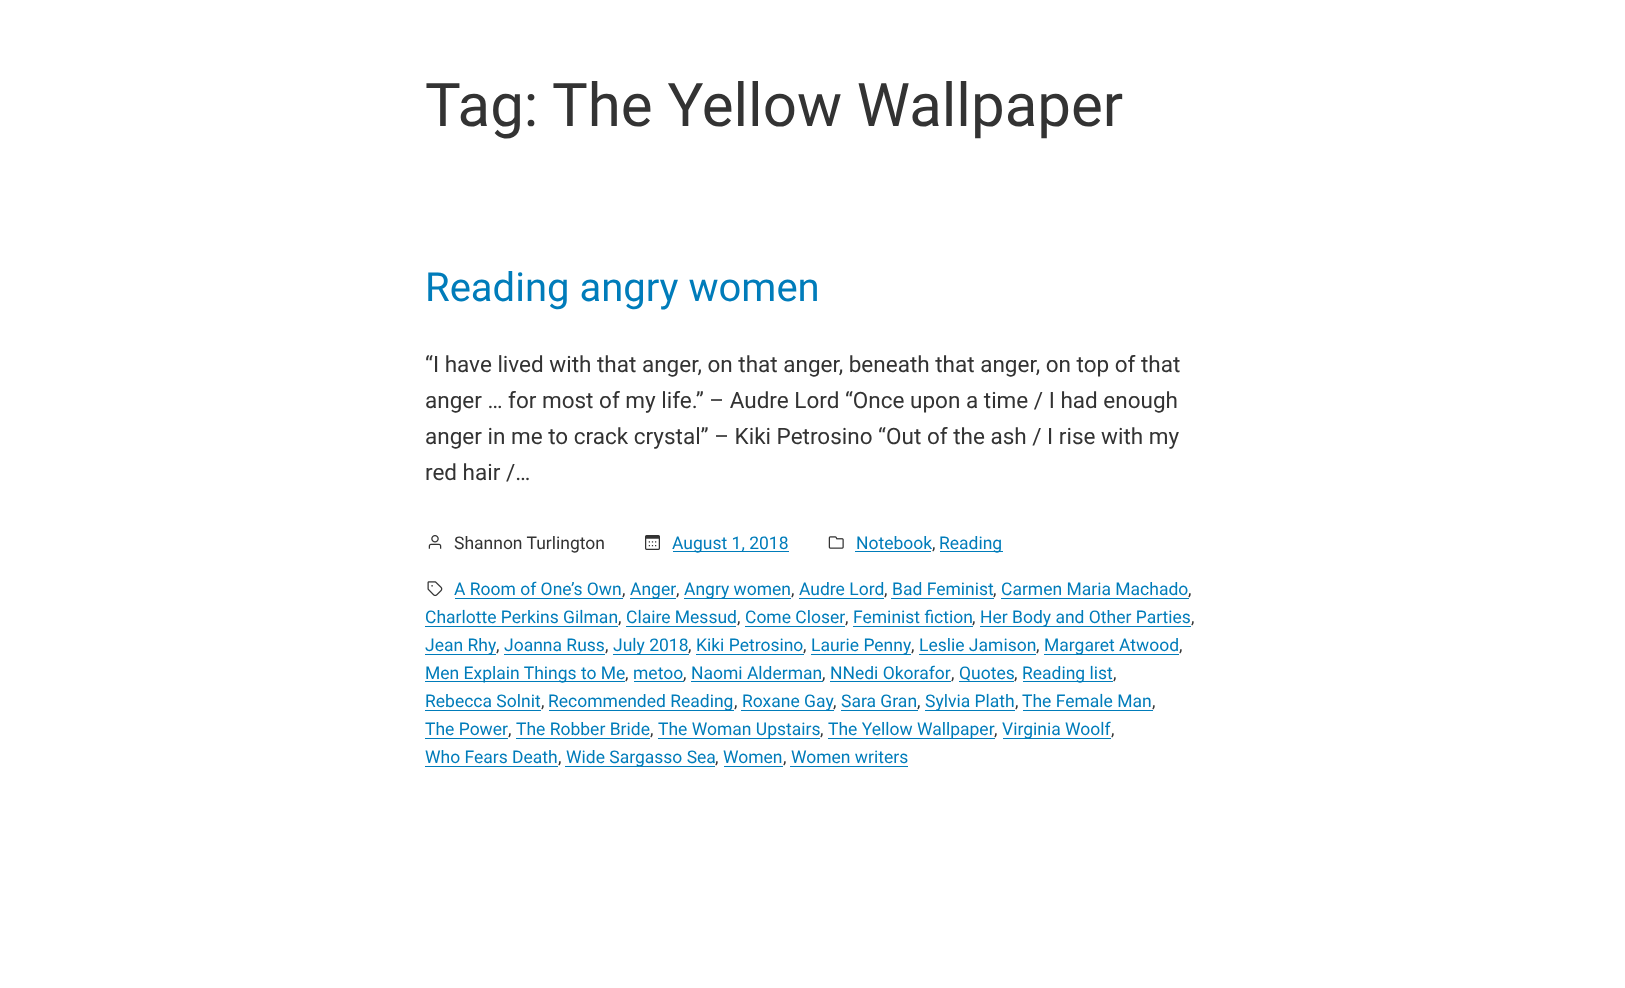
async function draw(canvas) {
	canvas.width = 1625;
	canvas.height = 988;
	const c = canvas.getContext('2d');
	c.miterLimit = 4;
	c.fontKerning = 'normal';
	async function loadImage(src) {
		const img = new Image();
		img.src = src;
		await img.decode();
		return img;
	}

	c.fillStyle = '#fff';
	c.fillRect(0, 0, 1625, 988);
	c.font = '60px Roboto';
	c.fillStyle = '#333';
	c.fillText('Tag:', 425, 126);
	c.fillText('The Yellow Wallpaper', 552, 126);
	c.font = '40px Roboto';
	c.fillStyle = '#007cba';
	c.fillText('Reading angry women', 425, 301);
	c.font = '22.5px Roboto';
	c.fillStyle = '#333';
	for (const [text, x, y] of [
		['“I have lived with that anger, on that anger, beneath that anger, on top of that', 425, 372],
		['anger … for most of my life.” – Audre Lord “Once upon a time / I had enough', 425, 408],
		['anger in me to crack crystal” – Kiki Petrosino “Out of the ash / I rise with my', 425, 444],
		['red hair /…', 425, 480],
	]) {
		c.fillText(text, x, y);
	}
	c.drawImage(await loadImage('img1.png'), 428, 535, 14, 14);
	c.font = '17.5px Roboto';
	c.fillText('Shannon Turlington', 454, 549);
	c.drawImage(await loadImage('img2.png'), 645, 535, 15, 15);
	c.fillStyle = '#007cba';
	c.fillRect(673, 551, 116, 1);
	c.fillText('August 1, 2018', 672, 549);
	c.drawImage(await loadImage('img3.png'), 828, 536, 16, 13);
	c.fillText('Notebook', 856, 549);
	c.fillRect(855, 551, 76, 1);
	c.fillRect(940, 551, 63, 1);
	c.fillText('Reading', 939, 549);
	c.fillStyle = '#333';
	c.fillText(',', 932, 549);
	c.drawImage(await loadImage('img4.png'), 427, 581, 16, 16);
	c.fillStyle = '#007cba';
	c.fillText('A Room of One’s Own', 454, 595);
	c.fillRect(455, 598, 168, 1);
	c.fillStyle = '#333';
	c.fillText(',', 622, 595);
	c.fillStyle = '#007cba';
	c.fillRect(630, 598, 46, 1);
	c.fillText('Anger', 630, 595);
	c.fillStyle = '#333';
	c.fillText(',', 676, 595);
	c.fillStyle = '#007cba';
	c.fillRect(684, 598, 107, 1);
	c.fillText('Angry women', 684, 595);
	c.fillStyle = '#333';
	c.fillText(',', 791, 595);
	c.fillStyle = '#007cba';
	c.fillText('Audre Lord', 799, 595);
	c.fillRect(799, 598, 85, 1);
	c.fillStyle = '#333';
	c.fillText(',', 884, 595);
	c.fillStyle = '#007cba';
	c.fillText('Bad Feminist', 892, 595);
	c.fillRect(891, 598, 103, 1);
	c.fillStyle = '#333';
	c.fillText(',', 993, 595);
	c.fillStyle = '#007cba';
	c.fillText('Carmen Maria Machado', 1001, 595);
	c.fillRect(1001, 598, 188, 1);
	c.fillStyle = '#333';
	c.fillText(',', 1188, 595);
	c.fillStyle = '#007cba';
	c.fillText('Charlotte Perkins Gilman', 425, 623);
	c.fillRect(425, 626, 193, 1);
	c.fillStyle = '#333';
	c.fillText(',', 618, 623);
	c.fillStyle = '#007cba';
	c.fillText('Claire Messud', 626, 623);
	c.fillRect(626, 626, 110, 1);
	c.fillStyle = '#333';
	c.fillText(',', 737, 623);
	c.fillStyle = '#007cba';
	c.fillText('Come Closer', 745, 623);
	c.fillRect(745, 626, 100, 1);
	c.fillStyle = '#333';
	c.fillText(',', 845, 623);
	c.fillStyle = '#007cba';
	c.fillText('Feminist fiction', 853, 623);
	c.fillRect(853, 626, 120, 1);
	c.fillStyle = '#333';
	c.fillText(',', 972, 623);
	c.fillStyle = '#007cba';
	c.fillRect(980, 626, 211, 1);
	c.fillText('Her Body and Other Parties', 980, 623);
	c.fillStyle = '#333';
	c.fillText(',', 1191, 623);
	c.fillStyle = '#007cba';
	c.fillRect(425, 654, 71, 1);
	c.fillText('Jean Rhy', 425, 651);
	c.fillStyle = '#333';
	c.fillText(',', 496, 651);
	c.fillStyle = '#007cba';
	c.fillText('Joanna Russ', 504, 651);
	c.fillRect(504, 654, 101, 1);
	c.fillStyle = '#333';
	c.fillText(',', 605, 651);
	c.fillStyle = '#007cba';
	c.fillRect(613, 654, 76, 1);
	c.fillText('July 2018', 613, 651);
	c.fillStyle = '#333';
	c.fillText(',', 688, 651);
	c.fillStyle = '#007cba';
	c.fillText('Kiki Petrosino', 696, 651);
	c.fillRect(696, 654, 108, 1);
	c.fillStyle = '#333';
	c.fillText(',', 803, 651);
	c.fillStyle = '#007cba';
	c.fillRect(811, 654, 100, 1);
	c.fillText('Laurie Penny', 811, 651);
	c.fillStyle = '#333';
	c.fillText(',', 911, 651);
	c.fillStyle = '#007cba';
	c.fillText('Leslie Jamison', 919, 651);
	c.fillRect(919, 654, 117, 1);
	c.fillStyle = '#333';
	c.fillText(',', 1036, 651);
	c.fillStyle = '#007cba';
	c.fillRect(1044, 654, 135, 1);
	c.fillText('Margaret Atwood', 1044, 651);
	c.fillStyle = '#333';
	c.fillText(',', 1179, 651);
	c.fillStyle = '#007cba';
	c.fillRect(425, 681, 200, 1);
	c.fillText('Men Explain Things to Me', 425, 679);
	c.fillStyle = '#333';
	c.fillText(',', 625, 679);
	c.fillStyle = '#007cba';
	c.fillText('metoo', 633, 679);
	c.fillRect(634, 681, 50, 1);
	c.fillStyle = '#333';
	c.fillText(',', 683, 679);
	c.fillStyle = '#007cba';
	c.fillText('Naomi Alderman', 691, 679);
	c.fillRect(691, 681, 132, 1);
	c.fillStyle = '#333';
	c.fillText(',', 822, 679);
	c.fillStyle = '#007cba';
	c.fillText('NNedi Okorafor', 830, 679);
	c.fillRect(830, 681, 121, 1);
	c.fillStyle = '#333';
	c.fillText(',', 951, 679);
	c.fillStyle = '#007cba';
	c.fillRect(959, 681, 55, 1);
	c.fillText('Quotes', 959, 679);
	c.fillStyle = '#333';
	c.fillText(',', 1014, 679);
	c.fillStyle = '#007cba';
	c.fillRect(1023, 681, 90, 1);
	c.fillText('Reading list', 1022, 679);
	c.fillStyle = '#333';
	c.fillText(',', 1113, 679);
	c.fillStyle = '#007cba';
	c.fillText('Rebecca Solnit', 425, 707);
	c.fillRect(425, 710, 116, 1);
	c.fillStyle = '#333';
	c.fillText(',', 541, 707);
	c.fillStyle = '#007cba';
	c.fillRect(549, 710, 185, 1);
	c.fillText('Recommended Reading', 548, 707);
	c.fillStyle = '#333';
	c.fillText(',', 734, 707);
	c.fillStyle = '#007cba';
	c.fillRect(741, 710, 93, 1);
	c.fillText('Roxane Gay', 742, 707);
	c.fillStyle = '#333';
	c.fillText(',', 833, 707);
	c.fillStyle = '#007cba';
	c.fillText('Sara Gran', 841, 707);
	c.fillRect(841, 710, 77, 1);
	c.fillStyle = '#333';
	c.fillText(',', 917, 707);
	c.fillStyle = '#007cba';
	c.fillRect(925, 710, 90, 1);
	c.fillText('Sylvia Plath', 925, 707);
	c.fillStyle = '#333';
	c.fillText(',', 1015, 707);
	c.fillStyle = '#007cba';
	c.fillText('The Female Man', 1022, 707);
	c.fillRect(1023, 710, 130, 1);
	c.fillStyle = '#333';
	c.fillText(',', 1152, 707);
	c.fillStyle = '#007cba';
	c.fillText('The Power', 425, 735);
	c.fillRect(425, 738, 83, 1);
	c.fillStyle = '#333';
	c.fillText(',', 508, 735);
	c.fillStyle = '#007cba';
	c.fillText('The Robber Bride', 516, 735);
	c.fillRect(516, 738, 134, 1);
	c.fillStyle = '#333';
	c.fillText(',', 650, 735);
	c.fillStyle = '#007cba';
	c.fillRect(658, 738, 162, 1);
	c.fillText('The Woman Upstairs', 658, 735);
	c.fillStyle = '#333';
	c.fillText(',', 820, 735);
	c.fillStyle = '#007cba';
	c.fillRect(828, 738, 167, 1);
	c.fillText('The Yellow Wallpaper', 828, 735);
	c.fillStyle = '#333';
	c.fillText(',', 994, 735);
	c.fillStyle = '#007cba';
	c.fillRect(1003, 738, 108, 1);
	c.fillText('Virginia Woolf', 1002, 735);
	c.fillStyle = '#333';
	c.fillText(',', 1111, 735);
	c.fillStyle = '#007cba';
	c.fillText('Who Fears Death', 425, 763);
	c.fillRect(425, 766, 133, 1);
	c.fillStyle = '#333';
	c.fillText(',', 558, 763);
	c.fillStyle = '#007cba';
	c.fillRect(565, 766, 150, 1);
	c.fillText('Wide Sargasso Sea', 566, 763);
	c.fillStyle = '#333';
	c.fillText(',', 715, 763);
	c.fillStyle = '#007cba';
	c.fillText('Women', 723, 763);
	c.fillRect(724, 766, 59, 1);
	c.fillStyle = '#333';
	c.fillText(',', 783, 763);
	c.fillStyle = '#007cba';
	c.fillText('Women writers', 791, 763);
	c.fillRect(790, 766, 118, 1);
}

draw(document.querySelector('canvas'));
